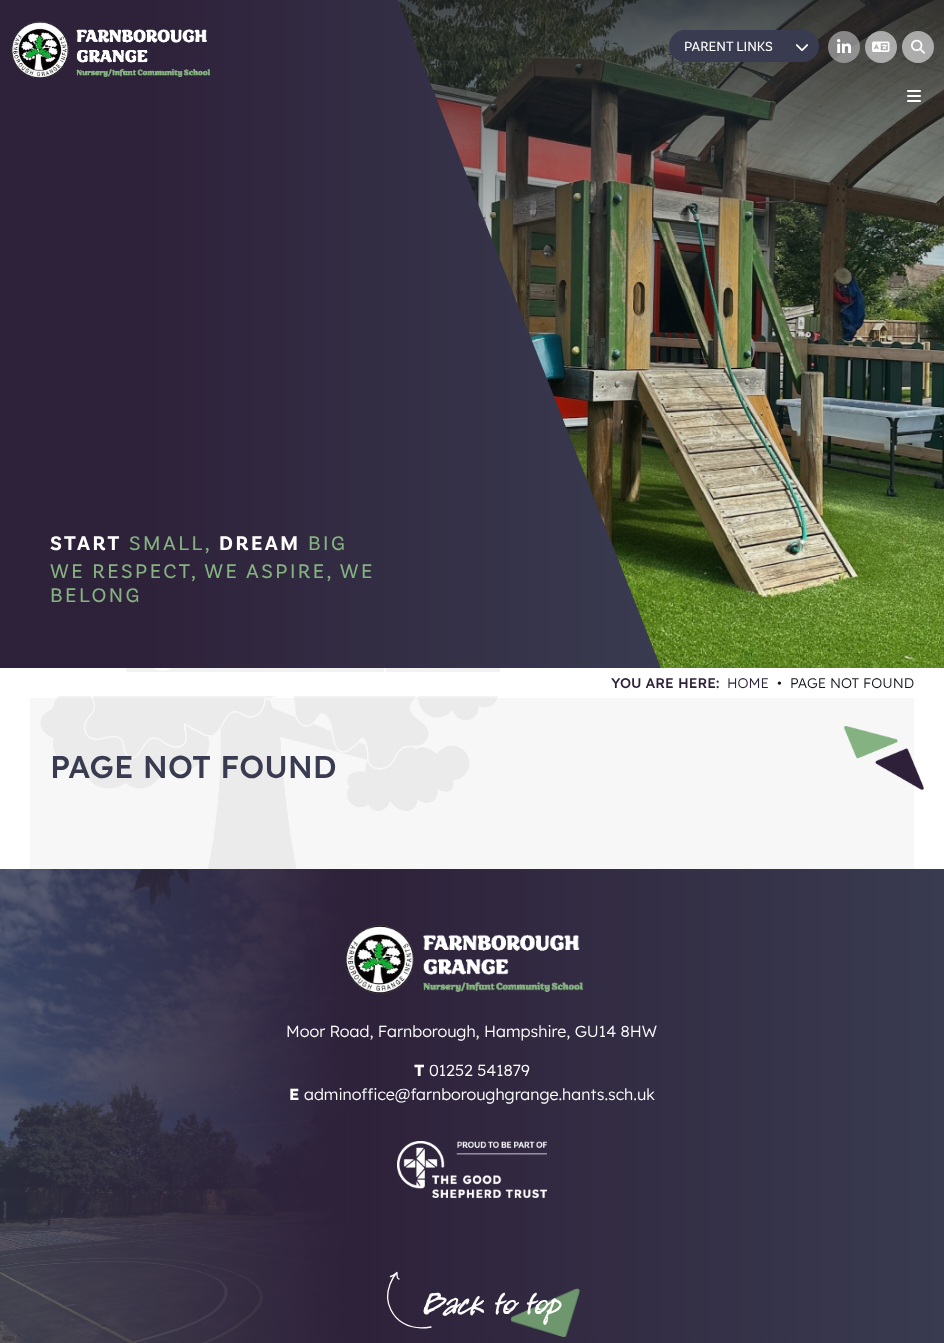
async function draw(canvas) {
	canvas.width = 944;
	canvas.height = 1343;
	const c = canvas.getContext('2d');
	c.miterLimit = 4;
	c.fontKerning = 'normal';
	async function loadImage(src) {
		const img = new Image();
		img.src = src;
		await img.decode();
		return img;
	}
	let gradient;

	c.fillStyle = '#fff';
	c.fillRect(0, 0, 944, 1343);
	c.drawImage(await loadImage('img7.png'), 397, 0, 547, 668);
	gradient = c.createLinearGradient(472, -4, 472, 668);
	gradient.addColorStop(0, '#1a1a1acc');
	gradient.addColorStop(0.4, '#1a1a1a33');
	gradient.addColorStop(1, '#1a1a1a00');
	c.fillStyle = gradient;
	c.fillRect(397, 0, 547, 625);
	gradient = c.createLinearGradient(0, 332, 661, 332);
	gradient.addColorStop(0.2, '#2e213a');
	gradient.addColorStop(1, '#393b50');
	c.fillStyle = gradient;
	c.beginPath();
	c.moveTo(0, -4);
	c.lineTo(0, 668);
	c.lineTo(661, 668);
	c.lineTo(396, -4);
	c.closePath();
	c.fill();
	c.drawImage(await loadImage('img1.png'), 11, 21, 200, 58);
	c.drawImage(await loadImage('img2.png'), 907, 90, 14, 12);
	c.fillStyle = '#393b50';
	c.beginPath();
	c.roundRect(669, 30, 150, 32, 16);
	c.fill();
	c.font = '14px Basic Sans';
	c.fillStyle = '#fff';
	c.fillText('PARENT LINKS', 684, 51);
	c.drawImage(await loadImage('img3.png'), 796, 44, 12, 7);
	c.fillStyle = '#b0afb1b3';
	c.beginPath();
	c.arc(844, 47, 16, 0, 2 * Math.PI);
	c.fill();
	c.drawImage(await loadImage('img4.png'), 837, 39, 14, 14);
	c.fillStyle = '#d8d7d8b3';
	c.beginPath();
	c.arc(881, 47, 16, 0, 2 * Math.PI);
	c.fill();
	c.drawImage(await loadImage('img5.png'), 872, 41, 18, 11);
	c.beginPath();
	c.arc(918, 47, 16, 0, 2 * Math.PI);
	c.fill();
	c.drawImage(await loadImage('img6.png'), 911, 39, 14, 15);
	c.letterSpacing = '2.5px';
	c.font = 'bold 20.75px Basic Sans';
	c.fillStyle = '#fff';
	c.fillText('START', 50, 550);
	c.font = '20.75px Basic Sans';
	c.fillStyle = '#85b280';
	c.fillText('SMALL,', 129, 550);
	c.font = 'bold 20.75px Basic Sans';
	c.fillStyle = '#fff';
	c.fillText('DREAM', 219, 550);
	c.font = '20.75px Basic Sans';
	c.fillStyle = '#85b280';
	for (const [text, x, y] of [
		['BIG', 308, 550],
		['WE RESPECT, WE ASPIRE, WE', 50, 578],
		['BELONG', 50, 602],
	]) {
		c.fillText(text, x, y);
	}
	c.fillStyle = '#f7f7f7';
	c.fillRect(30, 698, 884, 171);
	c.drawImage(await loadImage('img8.png'), 40, 668, 460, 201);
	c.fillStyle = '#fff';
	c.fillRect(59, 672, 441, 24);
	c.letterSpacing = '0px';
	c.font = '500 14px Lexend';
	c.fillStyle = '#2e213a';
	c.fillText('YOU ARE HERE:', 611, 688);
	c.font = '300 14px Lexend';
	c.fillText('HOME', 727, 688);
	c.fillStyle = '#12171f';
	c.fillText('•', 777, 688);
	c.fillText('PAGE NOT FOUND', 790, 688);
	c.font = '500 31.5px Lexend';
	c.fillStyle = '#393b50';
	c.fillText('PAGE NOT FOUND', 50, 778);
	c.drawImage(await loadImage('img9.png'), 844, 726, 80, 64);
	c.fillRect(0, 869, 347, 474);
	c.drawImage(await loadImage('img10.png'), 0, 869, 347, 474);
	gradient = c.createLinearGradient(0, 1165, 944, 1165);
	gradient.addColorStop(0, '#2e213a1a');
	gradient.addColorStop(0.37, '#2e213a');
	gradient.addColorStop(1, '#393b50');
	c.fillStyle = gradient;
	c.fillRect(0, 869, 944, 474);
	c.drawImage(await loadImage('img11.png'), 345, 925, 239, 69);
	c.font = '300 16px Lexend';
	c.fillStyle = '#fff';
	c.fillText('Moor Road, Farnborough, Hampshire, GU14 8HW', 286, 1037);
	c.font = 'bold 16px Lexend';
	c.fillText('T', 414, 1076);
	c.font = '300 16px Lexend';
	c.fillText('01252 541879', 429, 1076);
	c.font = 'bold 16px Lexend';
	c.fillText('E', 289, 1100);
	c.font = '300 16px Lexend';
	c.fillText('adminoffice@farnboroughgrange.hants.sch.uk', 304, 1100);
	c.drawImage(await loadImage('img12.png'), 397, 1141, 150, 57);
	c.beginPath();
	c.moveTo(431, 1327);
	c.bezierCurveTo(405, 1331.5, 394.5, 1317, 391, 1310);
	c.bezierCurveTo(381, 1290.5, 396.5, 1273, 396.5, 1273);
	c.bezierCurveTo(394.5, 1274.5, 393, 1276, 390.5, 1276.5);
	c.bezierCurveTo(393, 1276, 395, 1274.5, 397, 1272.5);
	c.bezierCurveTo(397, 1272.5, 396.5, 1279, 399, 1279);
	c.strokeStyle = '#fff';
	c.lineWidth = 1.3;
	c.lineCap = 'round';
	c.lineJoin = 'round';
	c.stroke();
	c.drawImage(await loadImage('img13.png'), 510, 1288, 70, 49);
	c.font = '34px "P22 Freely"';
	c.fillText('Back to top', 423, 1314);
}

draw(document.querySelector('canvas'));
